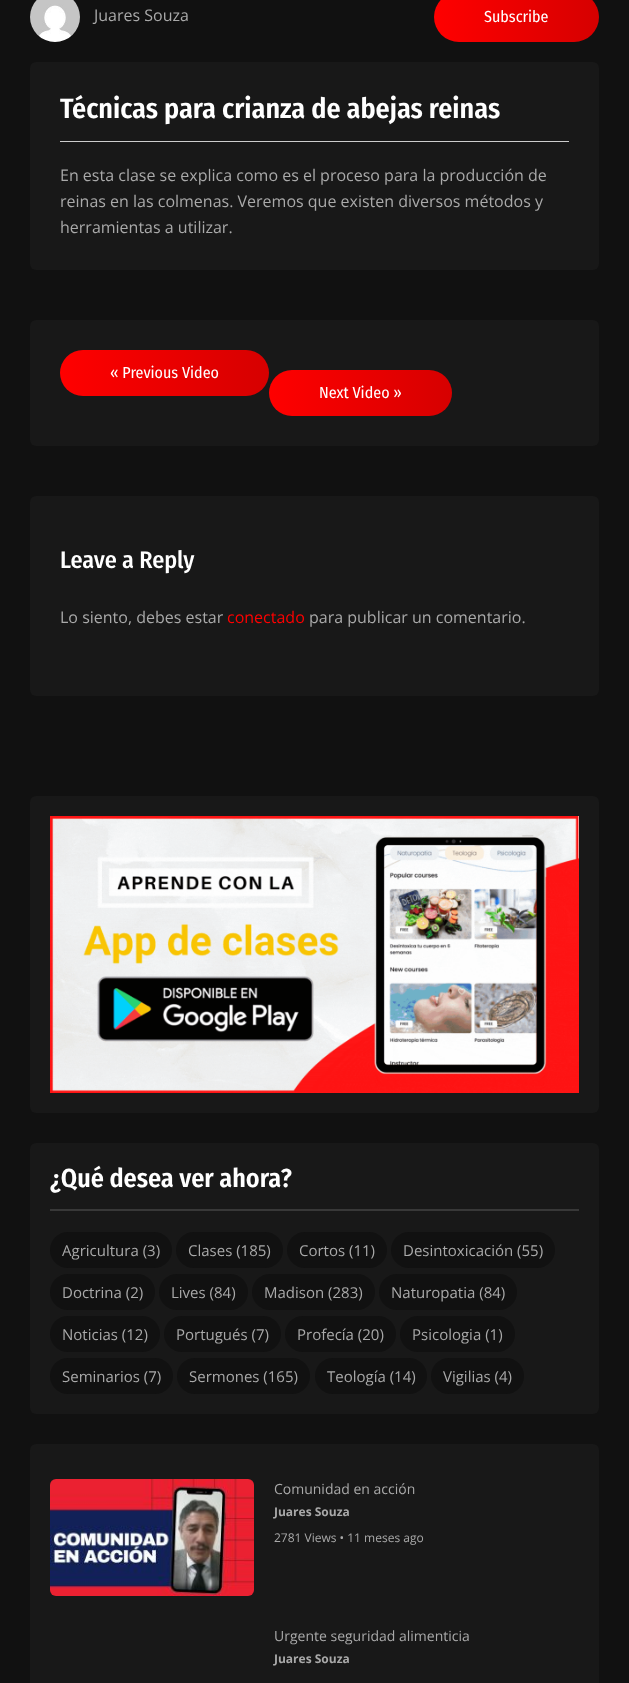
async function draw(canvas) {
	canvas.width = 629;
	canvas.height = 1683;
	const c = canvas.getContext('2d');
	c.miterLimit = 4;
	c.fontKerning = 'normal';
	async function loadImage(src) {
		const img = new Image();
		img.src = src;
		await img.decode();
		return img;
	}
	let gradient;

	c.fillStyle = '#111';
	c.fillRect(0, 0, 629, 1683);
	c.drawImage(await loadImage('img1.png'), 30, 0, 50, 42);
	c.font = '16px Open Sans';
	c.fillStyle = '#a9a9a9';
	c.fillText('Juares Souza', 94, 21);
	gradient = c.createLinearGradient(434, 17, 599, 17);
	gradient.addColorStop(0, '#f00');
	gradient.addColorStop(1, '#d60000');
	c.fillStyle = gradient;
	c.beginPath();
	c.roundRect(434, -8, 165, 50, 25);
	c.fill();
	c.font = '16px Fira Sans Condensed';
	c.fillStyle = '#fff';
	c.fillText('Subscribe', 484, 22);
	c.fillStyle = '#181818';
	c.beginPath();
	c.roundRect(30, 62, 569, 208, 6);
	c.fill();
	c.fillStyle = '#ccc';
	c.fillRect(60, 141, 509, 1);
	c.font = '600 28px Fira Sans Condensed';
	c.fillStyle = '#fff';
	c.fillText('Técnicas para crianza de abejas reinas', 60, 118);
	c.font = '16px Open Sans';
	c.fillStyle = '#a9a9a9';
	for (const [text, x, y] of [
		['En esta clase se explica como es el proceso para la producción de', 60, 181],
		['reinas en las colmenas. Veremos que existen diversos métodos y', 60, 207],
		['herramientas a utilizar.', 60, 233],
	]) {
		c.fillText(text, x, y);
	}
	c.fillStyle = '#181818';
	c.beginPath();
	c.roundRect(30, 320, 569, 126, 6);
	c.fill();
	gradient = c.createLinearGradient(60, 373, 269, 373);
	gradient.addColorStop(0, '#f00');
	gradient.addColorStop(1, '#d60000');
	c.fillStyle = gradient;
	c.beginPath();
	c.roundRect(60, 350, 209, 46, 23);
	c.fill();
	c.font = '16px Fira Sans Condensed';
	c.fillStyle = '#fff';
	c.fillText('« Previous Video', 110, 378);
	gradient = c.createLinearGradient(269, 393, 452, 393);
	gradient.addColorStop(0, '#f00');
	gradient.addColorStop(1, '#d60000');
	c.fillStyle = gradient;
	c.beginPath();
	c.roundRect(269, 370, 183, 46, 23);
	c.fill();
	c.fillStyle = '#fff';
	c.fillText('Next Video »', 319, 398);
	c.fillStyle = '#181818';
	c.beginPath();
	c.roundRect(30, 496, 569, 200, 6);
	c.fill();
	c.font = '500 24px Fira Sans Condensed';
	c.fillStyle = '#fff';
	c.fillText('Leave a Reply', 60, 568);
	c.font = '16px Open Sans';
	c.fillStyle = '#a9a9a9';
	c.fillText('Lo siento, debes estar', 60, 623);
	c.fillStyle = '#f00';
	c.fillText('conectado', 227, 623);
	c.fillStyle = '#a9a9a9';
	c.fillText('para publicar un comentario.', 309, 623);
	c.fillStyle = '#181818';
	c.beginPath();
	c.roundRect(30, 796, 569, 317, 6);
	c.fill();
	c.drawImage(await loadImage('img2.png'), 50, 816, 529, 277);
	c.beginPath();
	c.roundRect(30, 1143, 569, 271, 6);
	c.fill();
	c.fillStyle = '#383838';
	c.fillRect(50, 1209, 529, 2);
	c.font = '600 26px Fira Sans Condensed';
	c.fillStyle = '#fff';
	c.fillText('¿Qué desea ver ahora?', 50, 1187);
	c.fillStyle = '#111';
	c.beginPath();
	c.roundRect(50, 1232, 122, 36, 18);
	c.fill();
	c.font = '15px Open Sans';
	c.fillStyle = '#a9a9a9';
	c.fillText('Agricultura (3)', 62, 1256);
	c.fillStyle = '#111';
	c.beginPath();
	c.roundRect(176, 1232, 107, 36, 18);
	c.fill();
	c.fillStyle = '#a9a9a9';
	c.fillText('Clases (185)', 188, 1256);
	c.fillStyle = '#111';
	c.beginPath();
	c.roundRect(287, 1232, 100, 36, 18);
	c.fill();
	c.fillStyle = '#a9a9a9';
	c.fillText('Cortos (11)', 299, 1256);
	c.fillStyle = '#111';
	c.beginPath();
	c.roundRect(391, 1232, 164, 36, 18);
	c.fill();
	c.fillStyle = '#a9a9a9';
	c.fillText('Desintoxicación (55)', 403, 1256);
	c.fillStyle = '#111';
	c.beginPath();
	c.roundRect(50, 1274, 105, 36, 18);
	c.fill();
	c.fillStyle = '#a9a9a9';
	c.fillText('Doctrina (2)', 62, 1298);
	c.fillStyle = '#111';
	c.beginPath();
	c.roundRect(159, 1274, 89, 36, 18);
	c.fill();
	c.fillStyle = '#a9a9a9';
	c.fillText('Lives (84)', 171, 1298);
	c.fillStyle = '#111';
	c.beginPath();
	c.roundRect(252, 1274, 123, 36, 18);
	c.fill();
	c.fillStyle = '#a9a9a9';
	c.fillText('Madison (283)', 264, 1298);
	c.fillStyle = '#111';
	c.beginPath();
	c.roundRect(379, 1274, 138, 36, 18);
	c.fill();
	c.fillStyle = '#a9a9a9';
	c.fillText('Naturopatia (84)', 391, 1298);
	c.fillStyle = '#111';
	c.beginPath();
	c.roundRect(50, 1316, 110, 36, 18);
	c.fill();
	c.fillStyle = '#a9a9a9';
	c.fillText('Noticias (12)', 62, 1340);
	c.fillStyle = '#111';
	c.beginPath();
	c.roundRect(164, 1316, 117, 36, 18);
	c.fill();
	c.fillStyle = '#a9a9a9';
	c.fillText('Portugués (7)', 176, 1340);
	c.fillStyle = '#111';
	c.beginPath();
	c.roundRect(285, 1316, 111, 36, 18);
	c.fill();
	c.fillStyle = '#a9a9a9';
	c.fillText('Profecía (20)', 297, 1340);
	c.fillStyle = '#111';
	c.beginPath();
	c.roundRect(400, 1316, 115, 36, 18);
	c.fill();
	c.fillStyle = '#a9a9a9';
	c.fillText('Psicologia (1)', 412, 1340);
	c.fillStyle = '#111';
	c.beginPath();
	c.roundRect(50, 1358, 123, 36, 18);
	c.fill();
	c.fillStyle = '#a9a9a9';
	c.fillText('Seminarios (7)', 62, 1382);
	c.fillStyle = '#111';
	c.beginPath();
	c.roundRect(177, 1358, 133, 36, 18);
	c.fill();
	c.fillStyle = '#a9a9a9';
	c.fillText('Sermones (165)', 189, 1382);
	c.fillStyle = '#111';
	c.beginPath();
	c.roundRect(315, 1358, 112, 36, 18);
	c.fill();
	c.fillStyle = '#a9a9a9';
	c.fillText('Teología (14)', 327, 1382);
	c.fillStyle = '#111';
	c.beginPath();
	c.roundRect(431, 1358, 93, 36, 18);
	c.fill();
	c.fillStyle = '#a9a9a9';
	c.fillText('Vigilias (4)', 443, 1382);
	c.fillStyle = '#181818';
	c.beginPath();
	c.roundRect(30, 1444, 569, 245, 6);
	c.fill();
	c.drawImage(await loadImage('img3.png'), 50, 1479, 204, 117);
	c.font = '14px Open Sans';
	c.fillStyle = '#a9a9a9';
	c.fillText('Comunidad en acción', 274, 1494);
	c.font = 'bold 12px Open Sans';
	c.fillText('Juares Souza', 274, 1516);
	c.font = '12px Open Sans';
	c.fillText('2781 Views • 11 meses ago', 274, 1542);
	c.font = '14px Open Sans';
	c.fillText('Urgente seguridad alimenticia', 274, 1641);
	c.font = 'bold 12px Open Sans';
	c.fillText('Juares Souza', 274, 1663);
}

draw(document.querySelector('canvas'));
